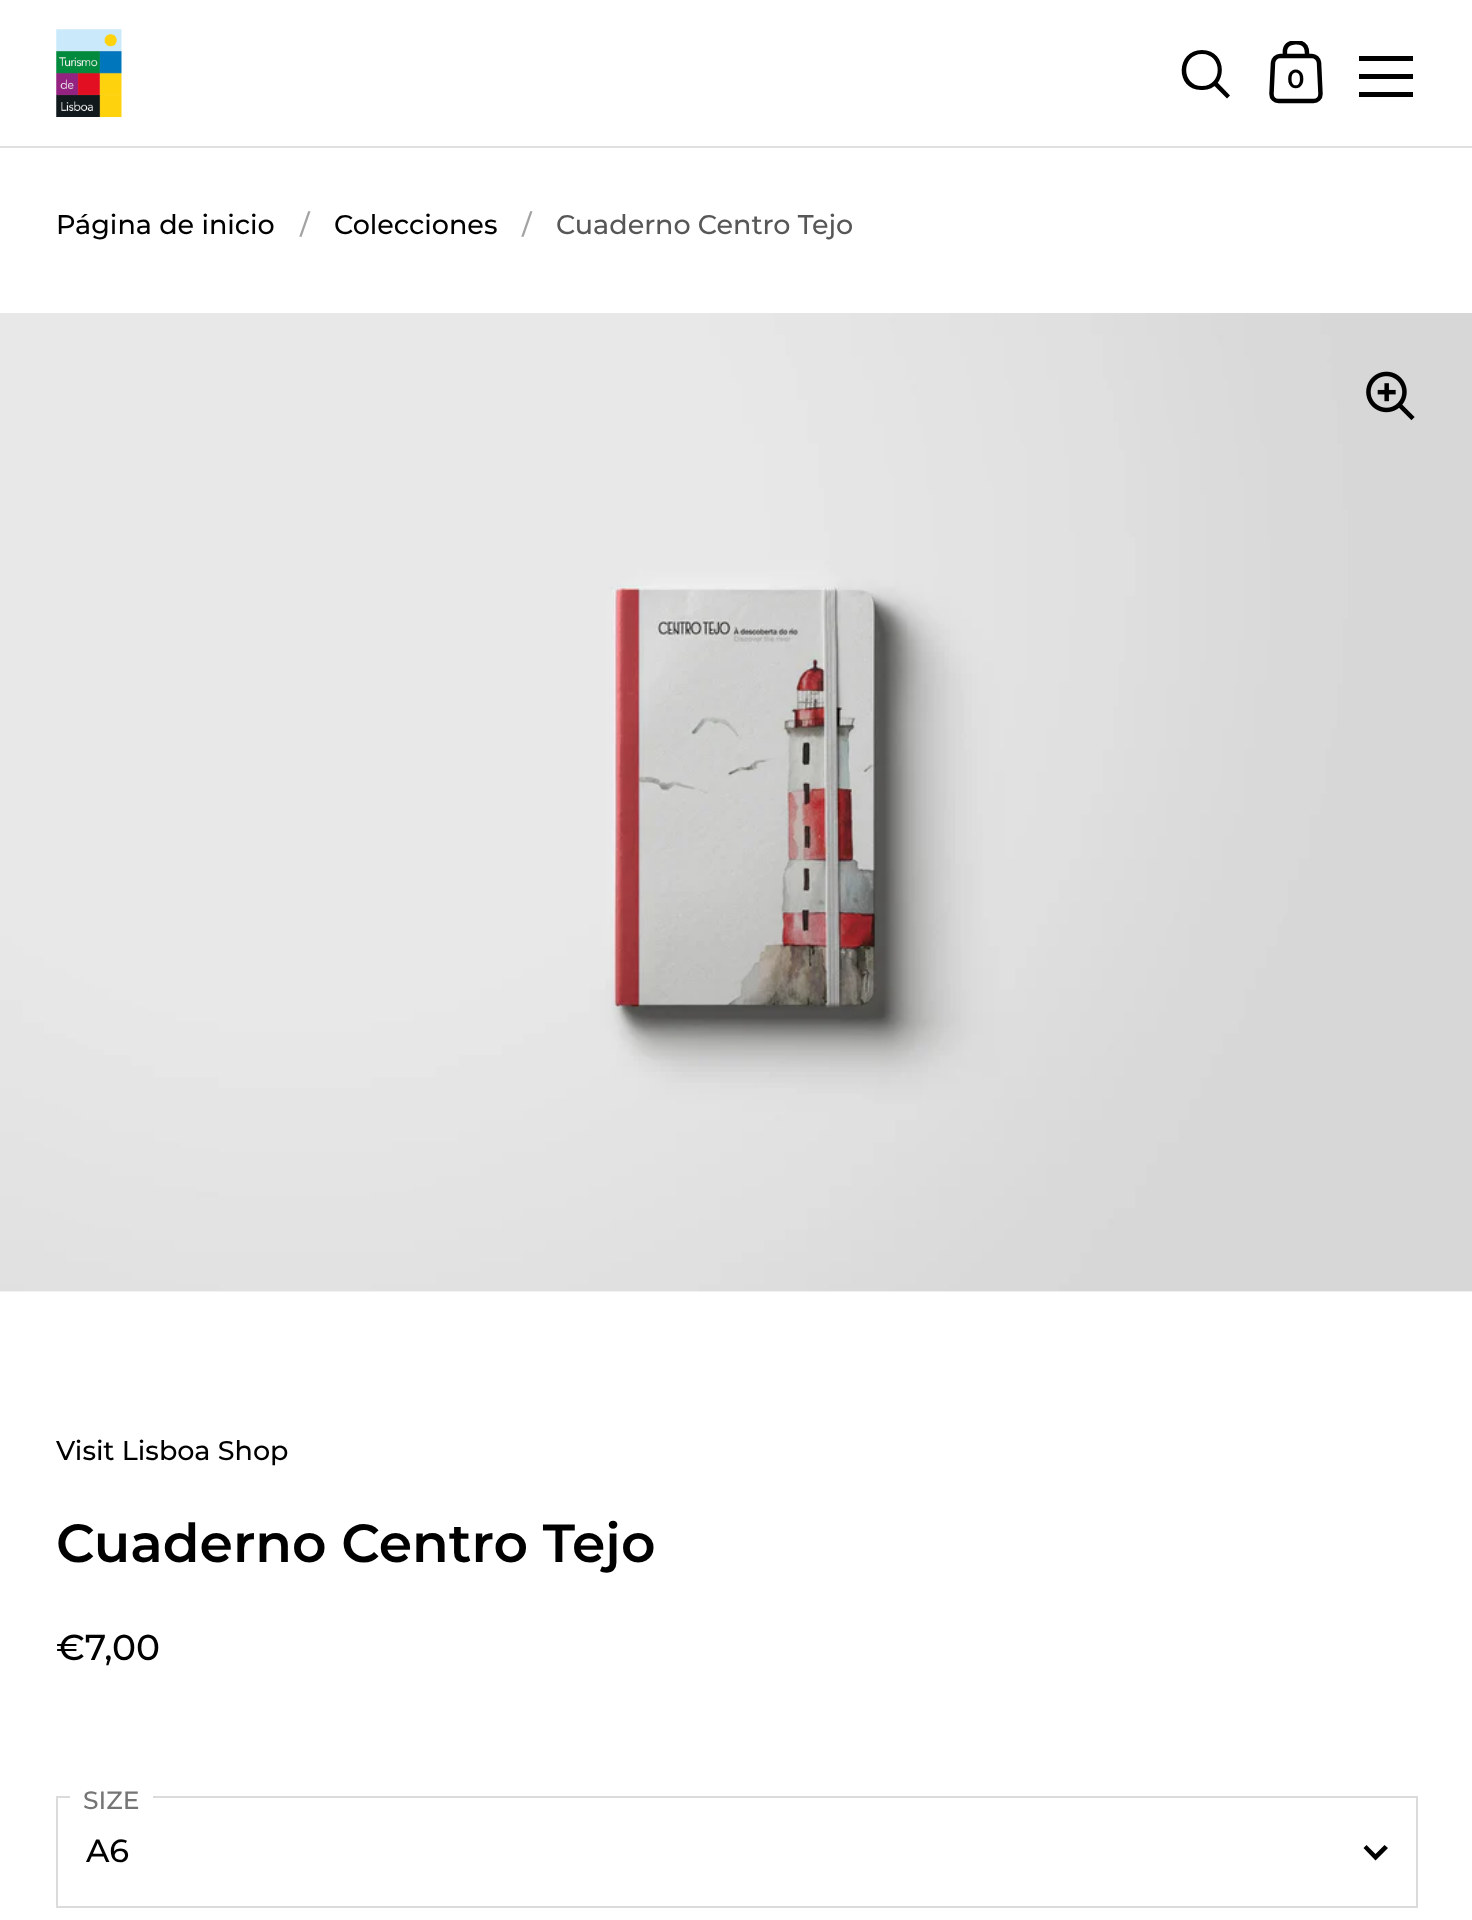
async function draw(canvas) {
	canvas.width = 1472;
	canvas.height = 1920;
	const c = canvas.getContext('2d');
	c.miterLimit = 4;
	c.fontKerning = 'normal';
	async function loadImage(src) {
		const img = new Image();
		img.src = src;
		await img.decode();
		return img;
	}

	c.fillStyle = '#fff';
	c.fillRect(0, 0, 1472, 1920);
	c.fillStyle = '#e0e0e0';
	c.fillRect(0, 146, 1472, 2);
	c.drawImage(await loadImage('img1.png'), 56, 29, 66, 88);
	c.fillStyle = '#000';
	c.beginPath();
	c.moveTo(1202, 90);
	c.bezierCurveTo(1175, 91, 1175, 50, 1202, 50);
	c.bezierCurveTo(1229, 50, 1228, 91, 1202, 90);
	c.closePath();
	c.moveTo(1202, 54);
	c.bezierCurveTo(1181, 54, 1181, 86, 1202, 86);
	c.bezierCurveTo(1223, 86, 1223, 54, 1202, 54);
	c.closePath();
	c.fill();
	c.beginPath();
	c.moveTo(1214, 85.5);
	c.lineTo(1217.5, 82.5);
	c.lineTo(1230, 95.5);
	c.lineTo(1227, 98.5);
	c.closePath();
	c.fill();
	c.save();
	c.beginPath();
	c.rect(1269, 41, 54, 63);
	c.clip();
	c.beginPath();
	c.moveTo(1285, 56);
	c.lineTo(1280, 56);
	c.bezierCurveTo(1276.5, 56, 1273.5, 59, 1273, 62.5);
	c.lineTo(1271.5, 94);
	c.bezierCurveTo(1271.5, 98, 1274.5, 101, 1278.5, 101);
	c.lineTo(1313.5, 101);
	c.bezierCurveTo(1317.5, 101, 1320.5, 98, 1320.5, 94);
	c.lineTo(1319, 62.5);
	c.bezierCurveTo(1318.5, 59, 1315.5, 56, 1312, 56);
	c.lineTo(1307, 56);
	c.moveTo(1285, 56);
	c.bezierCurveTo(1285, 53.5, 1284.5, 50.5, 1285.5, 48);
	c.bezierCurveTo(1288.5, 41, 1301.5, 40.5, 1305.5, 46.5);
	c.bezierCurveTo(1307.5, 49.5, 1307, 53, 1307, 56);
	c.moveTo(1285, 56);
	c.lineTo(1307, 56);
	c.strokeStyle = '#000';
	c.lineWidth = 4.5;
	c.stroke();
	c.restore();
	c.font = '600 26px Montserrat';
	c.fillText('0', 1287, 88);
	for (const [x, y, w, h, color] of [
		[1359, 56, 54, 5, '#000'],
		[1359, 74, 54, 5, '#000'],
		[1359, 92, 54, 5, '#000'],
	]) {
		c.fillStyle = color;
		c.fillRect(x, y, w, h);
	}
	c.font = '500 27px Montserrat';
	c.fillText('Página de inicio', 56, 234);
	c.fillStyle = '#a3a3a3';
	c.fillText('/', 300, 234);
	c.fillStyle = '#000';
	c.fillText('Colecciones', 334, 234);
	c.fillStyle = '#a3a3a3';
	c.fillText('/', 522, 234);
	c.fillStyle = '#575757';
	c.fillText('Cuaderno Centro Tejo', 556, 234);
	c.fillStyle = '#f8f8f8';
	c.fillRect(0, 1291, 1472, 1);
	c.drawImage(await loadImage('img2.png'), 0, 313, 1472, 979);
	c.drawImage(await loadImage('img3.png'), 1366, 371, 49, 50);
	c.fillStyle = '#000';
	c.fillText('Visit Lisboa Shop', 56, 1460);
	c.font = '600 53.6px Montserrat';
	c.fillText('Cuaderno Centro Tejo', 56, 1562);
	c.font = '500 36px Montserrat';
	c.fillText('€7,00', 56, 1660);
	c.beginPath();
	c.moveTo(1379, 1857);
	c.lineTo(1388, 1848);
	c.lineTo(1384.5, 1845);
	c.lineTo(1375.5, 1854);
	c.lineTo(1366.5, 1845);
	c.lineTo(1363.5, 1848);
	c.lineTo(1375.5, 1860.5);
	c.closePath();
	c.fill('evenodd');
	c.strokeStyle = '#dbdbdb';
	c.lineWidth = 2;
	c.strokeRect(57, 1797, 1360, 110);
	c.fillStyle = '#fff';
	c.fillRect(70, 1796, 83, 2);
	c.font = '500 25px Montserrat';
	c.fillStyle = '#757575';
	c.fillText('SIZE', 83, 1809);
	c.font = '500 32px Montserrat';
	c.fillStyle = '#000';
	c.fillText('A6', 86, 1862);
}

draw(document.querySelector('canvas'));
